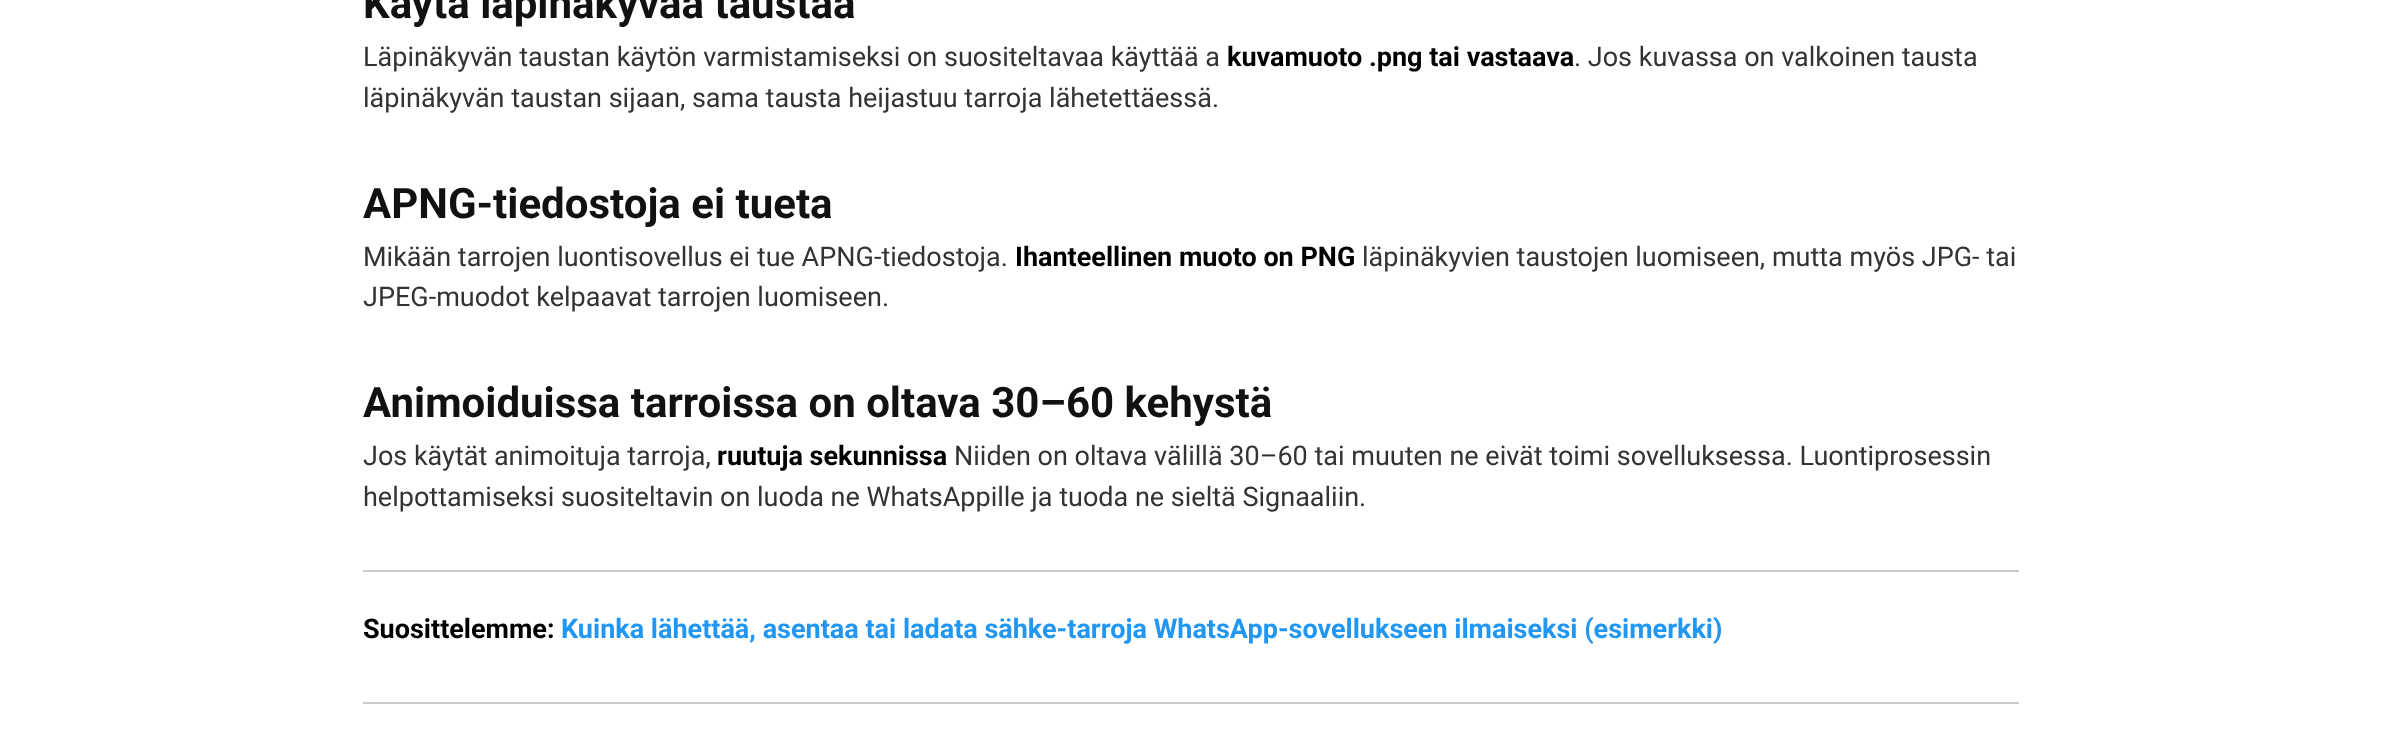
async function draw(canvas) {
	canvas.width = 2381;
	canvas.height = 735;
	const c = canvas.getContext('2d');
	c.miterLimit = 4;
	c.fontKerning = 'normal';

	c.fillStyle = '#fff';
	c.fillRect(0, 0, 2381, 735);
	c.font = 'bold 42px Roboto';
	c.fillStyle = '#111';
	c.fillText('Käytä läpinäkyvää taustaa', 363, 18);
	c.font = '27px Roboto';
	c.fillStyle = '#333';
	c.fillText('Läpinäkyvän taustan käytön varmistamiseksi on suositeltavaa käyttää a', 363, 66);
	c.font = 'bold 27px Roboto';
	c.fillStyle = '#000';
	c.fillText('kuvamuoto .png tai vastaava', 1227, 66);
	c.font = '27px Roboto';
	c.fillStyle = '#333';
	c.fillText('. Jos kuvassa on valkoinen tausta', 1574, 66);
	c.fillText('läpinäkyvän taustan sijaan, sama tausta heijastuu tarroja lähetettäessä.', 363, 107);
	c.font = 'bold 42px Roboto';
	c.fillStyle = '#111';
	c.fillText('APNG-tiedostoja ei tueta', 363, 218);
	c.font = '27px Roboto';
	c.fillStyle = '#333';
	c.fillText('Mikään tarrojen luontisovellus ei tue APNG-tiedostoja.', 363, 266);
	c.font = 'bold 27px Roboto';
	c.fillStyle = '#000';
	c.fillText('Ihanteellinen muoto on PNG', 1015, 266);
	c.font = '27px Roboto';
	c.fillStyle = '#333';
	c.fillText('läpinäkyvien taustojen luomiseen, mutta myös JPG- tai', 1362, 266);
	c.fillText('JPEG-muodot kelpaavat tarrojen luomiseen.', 363, 306);
	c.font = 'bold 42px Roboto';
	c.fillStyle = '#111';
	c.fillText('Animoiduissa tarroissa on oltava 30–60 kehystä', 363, 417);
	c.font = '27px Roboto';
	c.fillStyle = '#333';
	c.fillText('Jos käytät animoituja tarroja,', 363, 465);
	c.font = 'bold 27px Roboto';
	c.fillStyle = '#000';
	c.fillText('ruutuja sekunnissa', 717, 465);
	c.font = '27px Roboto';
	c.fillStyle = '#333';
	c.fillText('Niiden on oltava välillä 30–60 tai muuten ne eivät toimi sovelluksessa. Luontiprosessin', 954, 465);
	c.fillText('helpottamiseksi suositeltavin on luoda ne WhatsAppille ja tuoda ne sieltä Signaaliin.', 363, 506);
	c.fillStyle = '#ccc';
	c.fillRect(363, 570, 1656, 2);
	c.font = 'bold 27px Roboto';
	c.fillStyle = '#000';
	c.fillText('Suosittelemme:', 363, 638);
	c.fillStyle = '#2196f3';
	c.fillText('Kuinka lähettää, asentaa tai ladata sähke-tarroja WhatsApp-sovellukseen ilmaiseksi (esimerkki)', 561, 638);
	c.fillStyle = '#ccc';
	c.fillRect(363, 702, 1656, 2);
}

draw(document.querySelector('canvas'));
